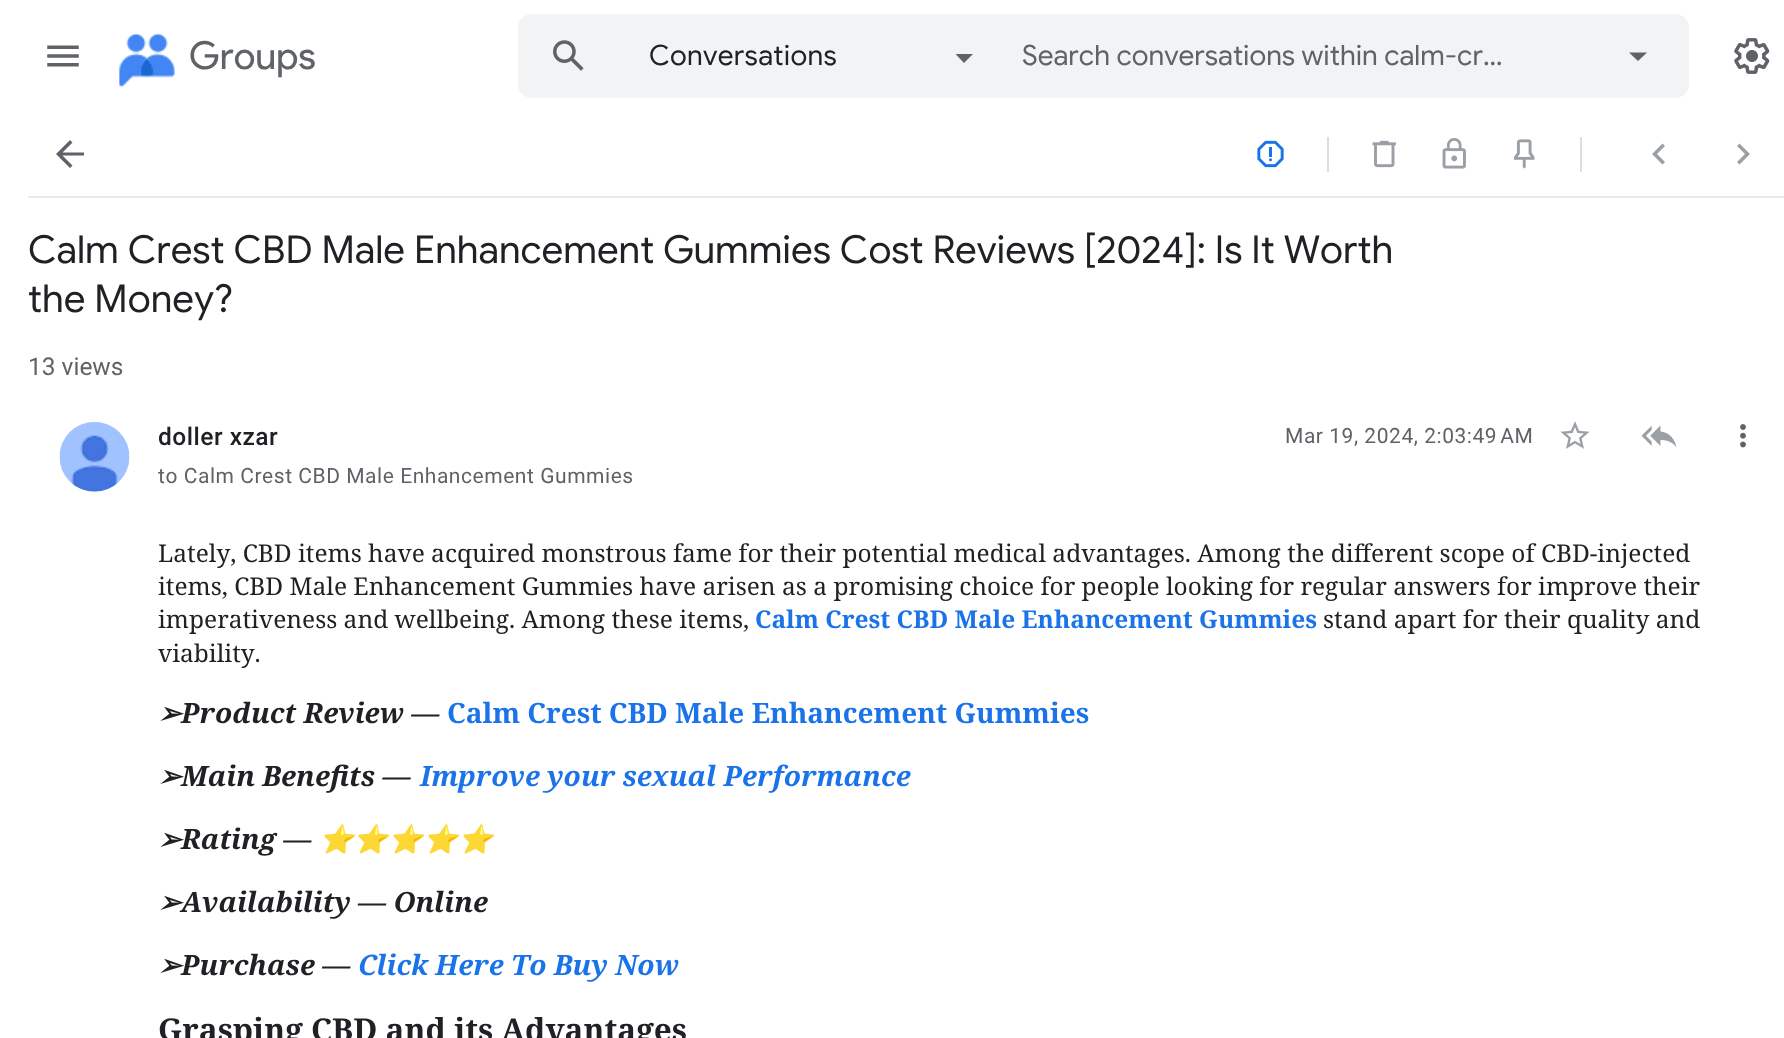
async function draw(canvas) {
	canvas.width = 1784;
	canvas.height = 1038;
	const c = canvas.getContext('2d');
	c.miterLimit = 4;
	c.fontKerning = 'none';
	async function loadImage(src) {
		const img = new Image();
		img.src = src;
		await img.decode();
		return img;
	}

	c.fillStyle = '#fff';
	c.fillRect(0, 0, 1784, 1038);
	c.drawImage(await loadImage('img1.png'), 47, 45, 32, 22);
	c.drawImage(await loadImage('img2.png'), 119, 33, 56, 55);
	c.font = '38.5px Product Sans';
	c.fillStyle = '#5f6368';
	c.fillText('Groups', 189, 69);
	c.fillStyle = '#f1f3f4';
	c.beginPath();
	c.roundRect(518, 14, 1171, 84, 14);
	c.fill();
	c.drawImage(await loadImage('img3.png'), 553, 40, 31, 31);
	c.letterSpacing = '0.3px';
	c.font = '28px Google Sans';
	c.fillStyle = '#202124';
	c.fillText('Conversations', 649, 65);
	c.fillStyle = '#5f6368';
	c.beginPath();
	c.moveTo(955.5, 54);
	c.lineTo(973, 54);
	c.lineTo(964, 63);
	c.closePath();
	c.fill();
	c.letterSpacing = '0px';
	c.fillText('Search conversations within calm-cr…', 1022, 65);
	c.beginPath();
	c.moveTo(1629, 52.5);
	c.lineTo(1638, 61);
	c.lineTo(1647, 52.5);
	c.closePath();
	c.fill();
	c.drawImage(await loadImage('img4.png'), 1734, 38, 36, 36);
	c.fillStyle = '#e8eaed';
	c.fillRect(28, 196, 1756, 2);
	c.fillStyle = '#5f6368';
	c.beginPath();
	c.moveTo(84, 152.5);
	c.lineTo(84, 155.5);
	c.lineTo(62.5, 155.5);
	c.lineTo(72.5, 165.5);
	c.lineTo(70, 168);
	c.lineTo(56, 154);
	c.lineTo(70, 140);
	c.lineTo(72.5, 142.5);
	c.lineTo(62.5, 152.5);
	c.closePath();
	c.fill();
	c.drawImage(await loadImage('img5.png'), 1257, 140, 27, 28);
	c.fillStyle = '#ddd';
	c.fillRect(1327, 137, 2, 35);
	c.drawImage(await loadImage('img6.png'), 1372, 140, 24, 28);
	c.drawImage(await loadImage('img7.png'), 1442, 138, 24, 31);
	c.drawImage(await loadImage('img8.png'), 1514, 139, 21, 30);
	c.fillRect(1580, 137, 2, 35);
	c.fillStyle = '#9aa0a6';
	c.beginPath();
	c.moveTo(1665, 146);
	c.lineTo(1657, 154);
	c.lineTo(1665, 162);
	c.lineTo(1662.5, 164.5);
	c.lineTo(1652, 154);
	c.lineTo(1662.5, 143.5);
	c.closePath();
	c.fill();
	c.beginPath();
	c.moveTo(1739.5, 143.5);
	c.lineTo(1750, 154);
	c.lineTo(1739.5, 164.5);
	c.lineTo(1737, 162);
	c.lineTo(1745, 154);
	c.lineTo(1737, 146);
	c.closePath();
	c.fill();
	c.font = '38.5px Google Sans';
	c.fillStyle = '#202124';
	c.fillText('Calm Crest CBD Male Enhancement', 28, 263);
	c.fillText('Gummies Cost Reviews [2024]: Is It Worth', 663, 263);
	c.fillText('the Money?', 28, 312);
	c.font = '24.5px Roboto';
	c.fillStyle = '#5f6368';
	c.fillText('13 views', 28, 375);
	c.drawImage(await loadImage('img9.png'), 59, 421, 71, 71);
	c.letterSpacing = '0.5px';
	c.font = '500 24.5px Roboto';
	c.fillStyle = '#202124';
	c.fillText('doller xzar', 158, 445);
	c.letterSpacing = '0.55px';
	c.font = '21px Roboto';
	c.fillStyle = '#5f6368';
	c.fillText('Mar 19, 2024, 2:03:49 AM', 1285, 443);
	c.drawImage(await loadImage('img10.png'), 1560, 421, 30, 28);
	c.drawImage(await loadImage('img11.png'), 1641, 425, 36, 23);
	c.drawImage(await loadImage('img12.png'), 1740, 424, 6, 24);
	c.fillText('to Calm Crest CBD Male Enhancement Gummies', 158, 483);
	c.letterSpacing = '0px';
	c.font = '24.5px Noto Serif';
	c.fillStyle = '#202124';
	for (const [text, x, y] of [
		['Lately, CBD items have acquired monstrous fame for their potential medical advantages. Among the different scope of CBD-injected', 158, 562],
		['items, CBD Male Enhancement Gummies have arisen as a promising choice for people looking for regular answers for improve their', 158, 595],
		['imperativeness and wellbeing. Among these items,', 158, 628],
	]) {
		c.fillText(text, x, y);
	}
	c.font = 'bold 24.5px Noto Serif';
	c.fillStyle = '#1a73e8';
	c.fillText('Calm Crest CBD Male Enhancement Gummies', 755, 628);
	c.font = '24.5px Noto Serif';
	c.fillStyle = '#202124';
	c.fillText('stand apart for their quality and', 1323, 628);
	c.fillText('viability.', 158, 662);
	c.font = 'italic bold 28px DejaVu Sans';
	c.fillText('➢', 158, 723);
	c.font = 'italic bold 28px Noto Serif';
	c.fillText('Product Review —', 181, 723);
	c.font = 'bold 28px Noto Serif';
	c.fillStyle = '#1a73e8';
	c.fillText('Calm Crest CBD Male Enhancement Gummies', 447, 723);
	c.font = 'italic bold 28px DejaVu Sans';
	c.fillStyle = '#202124';
	c.fillText('➢', 158, 786);
	c.font = 'italic bold 28px Noto Serif';
	c.fillText('Main Benefits —', 181, 786);
	c.fillStyle = '#1a73e8';
	c.fillText('Improve your sexual Performance', 420, 786);
	c.font = 'italic bold 28px DejaVu Sans';
	c.fillStyle = '#202124';
	c.fillText('➢', 158, 849);
	c.font = 'italic bold 28px Noto Serif';
	c.fillText('Rating —', 181, 849);
	c.font = 'italic bold 28px Noto Color Emoji';
	c.fillStyle = '#1a73e8';
	c.fillText('⭐⭐⭐⭐⭐', 319, 849);
	c.font = 'italic bold 28px DejaVu Sans';
	c.fillStyle = '#202124';
	c.fillText('➢', 158, 912);
	c.font = 'italic bold 28px Noto Serif';
	c.fillText('Availability — Online', 181, 912);
	c.font = 'italic bold 28px DejaVu Sans';
	c.fillText('➢', 158, 975);
	c.font = 'italic bold 28px Noto Serif';
	c.fillText('Purchase —', 181, 975);
	c.fillStyle = '#1a73e8';
	c.fillText('Click Here To Buy Now', 358, 975);
	c.font = 'bold 31.5px Noto Serif';
	c.fillStyle = '#202124';
	c.fillText('Grasping CBD and its Advantages', 158, 1041);
}

draw(document.querySelector('canvas'));
